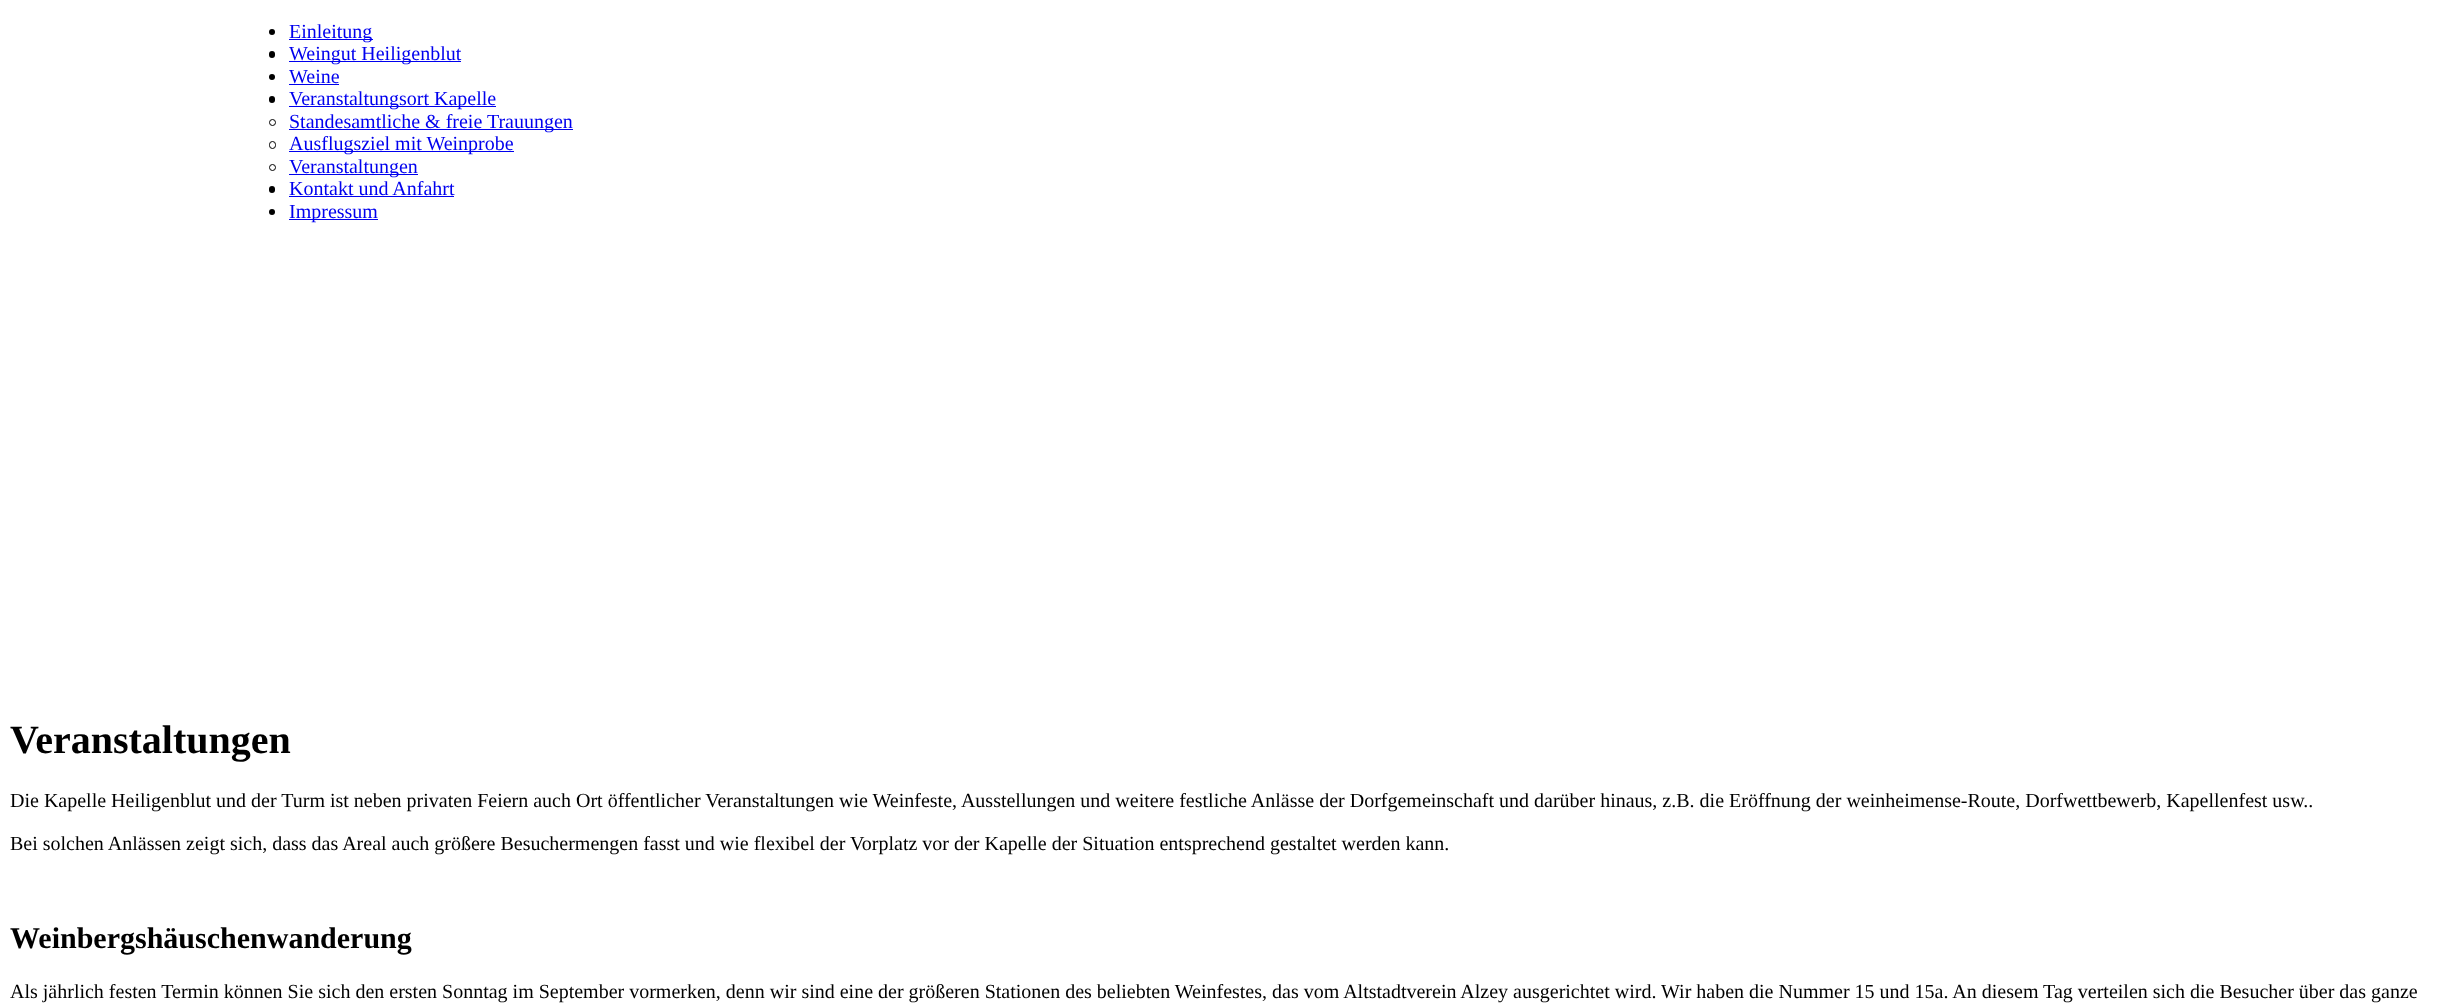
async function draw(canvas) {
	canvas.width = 2460;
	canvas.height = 1003;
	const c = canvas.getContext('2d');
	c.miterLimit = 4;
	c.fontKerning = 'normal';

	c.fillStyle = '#fff';
	c.fillRect(0, 0, 2460, 1003);
	c.fillStyle = '#000';
	c.beginPath();
	c.arc(272, 32, 3, 0, 2 * Math.PI);
	c.fill();
	c.fillStyle = '#00e';
	c.fillRect(289, 39, 84, 1);
	c.font = '20px Liberation Serif';
	c.fillText('Einleitung', 289, 38);
	c.fillStyle = '#000';
	c.beginPath();
	c.roundRect(269, 51, 6, 7, 3);
	c.fill();
	c.fillStyle = '#00e';
	c.fillRect(289, 61, 172, 1);
	c.fillText('Weingut Heiligenblut', 289, 60);
	c.fillStyle = '#000';
	c.beginPath();
	c.arc(272, 77, 3, 0, 2 * Math.PI);
	c.fill();
	c.fillStyle = '#00e';
	c.fillText('Weine', 289, 83);
	c.fillRect(289, 84, 50, 1);
	c.fillStyle = '#000';
	c.beginPath();
	c.roundRect(269, 96, 6, 7, 3);
	c.fill();
	c.fillStyle = '#00e';
	c.fillRect(289, 106, 207, 1);
	c.fillText('Veranstaltungsort Kapelle', 289, 105);
	c.beginPath();
	c.arc(272.5, 122.5, 3, 0, 2 * Math.PI);
	c.strokeStyle = '#000';
	c.stroke();
	c.fillRect(289, 129, 284, 1);
	c.fillText('Standesamtliche & freie Trauungen', 289, 128);
	c.beginPath();
	c.roundRect(269.5, 141.5, 6, 7, 3);
	c.stroke();
	c.fillRect(289, 151, 225, 1);
	c.fillText('Ausflugsziel mit Weinprobe', 289, 150);
	c.beginPath();
	c.arc(272.5, 167.5, 3, 0, 2 * Math.PI);
	c.stroke();
	c.fillRect(289, 174, 129, 1);
	c.fillText('Veranstaltungen', 289, 173);
	c.fillStyle = '#000';
	c.beginPath();
	c.roundRect(269, 186, 6, 7, 3);
	c.fill();
	c.fillStyle = '#00e';
	c.fillText('Kontakt und Anfahrt', 289, 195);
	c.fillRect(289, 196, 165, 1);
	c.fillStyle = '#000';
	c.beginPath();
	c.arc(272, 212, 3, 0, 2 * Math.PI);
	c.fill();
	c.fillStyle = '#00e';
	c.fillRect(289, 219, 89, 1);
	c.fillText('Impressum', 289, 218);
	c.font = 'bold 40px Liberation Serif';
	c.fillStyle = '#000';
	c.fillText('Veranstaltungen', 10, 753);
	c.font = '20px Liberation Serif';
	c.fillText('Die Kapelle Heiligenblut und der Turm ist neben privaten Feiern auch Ort öffentlicher Veranstaltungen wie Weinfeste, Ausstellungen und weitere festliche Anlässe der Dorfgemeinschaft und darüber hinaus, z.B. die Eröffnung der weinheimense-Route, Dorfwettbewerb, Kapellenfest usw..', 10, 807);
	c.fillText('Bei solchen Anlässen zeigt sich, dass das Areal auch größere Besuchermengen fasst und wie flexibel der Vorplatz vor der Kapelle der Situation entsprechend gestaltet werden kann.', 10, 850);
	c.font = 'bold 30px Liberation Serif';
	c.fillText('Weinbergshäuschenwanderung', 10, 948);
	c.font = '20px Liberation Serif';
	c.fillText('Als jährlich festen Termin können Sie sich den ersten Sonntag im September vormerken, denn wir sind eine der größeren Stationen des beliebten Weinfestes, das vom Altstadtverein Alzey ausgerichtet wird. Wir haben die Nummer 15 und 15a. An diesem Tag verteilen sich die Besucher über das ganze', 10, 998);
}

draw(document.querySelector('canvas'));
